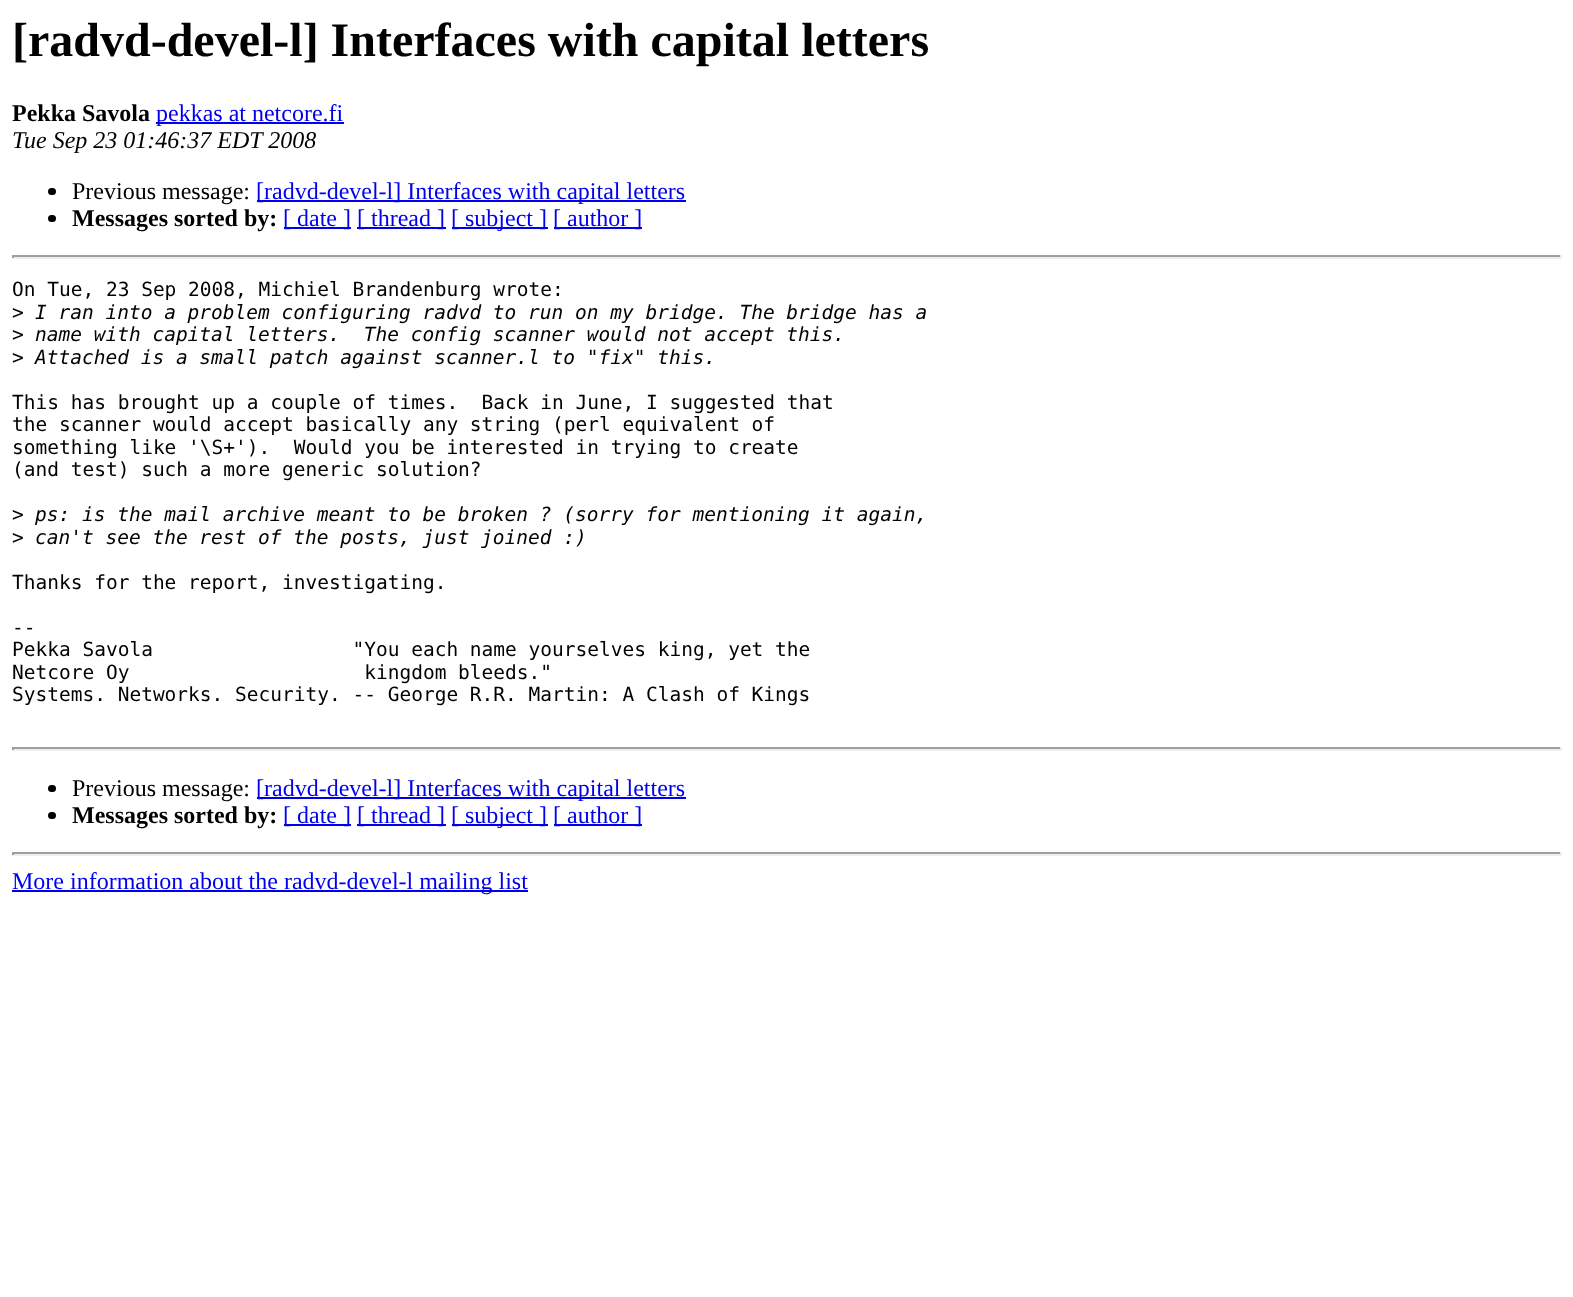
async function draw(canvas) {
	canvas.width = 1573;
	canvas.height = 1297;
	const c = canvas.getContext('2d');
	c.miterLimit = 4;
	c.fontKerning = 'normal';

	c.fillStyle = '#fff';
	c.fillRect(0, 0, 1573, 1297);
	c.font = 'bold 48px Liberation Serif';
	c.fillStyle = '#000';
	c.fillText('[radvd-devel-l] Interfaces with capital letters', 12, 56);
	c.font = 'bold 24px Liberation Serif';
	c.fillText('Pekka Savola', 12, 121);
	c.fillStyle = '#00e';
	c.fillRect(156, 122, 188, 2);
	c.font = '24px Liberation Serif';
	c.fillText('pekkas at netcore.fi', 156, 121);
	c.font = 'italic 24px Liberation Serif';
	c.fillStyle = '#000';
	c.fillText('Tue Sep 23 01:46:37 EDT 2008', 12, 148);
	c.beginPath();
	c.roundRect(48, 188, 8, 7, 3.5);
	c.fill();
	c.font = '24px Liberation Serif';
	c.fillText('Previous message:', 72, 199);
	c.fillStyle = '#00e';
	c.fillRect(257, 200, 429, 2);
	c.fillText('[radvd-devel-l] Interfaces with capital letters', 256, 199);
	c.fillStyle = '#000';
	c.beginPath();
	c.roundRect(48, 215, 8, 7, 3.5);
	c.fill();
	c.font = 'bold 24px Liberation Serif';
	c.fillText('Messages sorted by:', 72, 226);
	c.fillStyle = '#00e';
	c.fillRect(284, 227, 67, 2);
	c.font = '24px Liberation Serif';
	c.fillText('[ date ]', 283, 226);
	c.fillRect(357, 227, 89, 2);
	c.fillText('[ thread ]', 357, 226);
	c.fillRect(452, 227, 96, 2);
	c.fillText('[ subject ]', 451, 226);
	c.fillRect(554, 227, 88, 2);
	c.fillText('[ author ]', 553, 226);
	for (const [x, y, w, h, color] of [
		[12, 255, 1550, 2, '#9f9f9f'],
		[1560, 255, 2, 3, '#eee'],
		[12, 257, 1550, 2, '#eee'],
		[12, 255, 2, 3, '#9f9f9f'],
	]) {
		c.fillStyle = color;
		c.fillRect(x, y, w, h);
	}
	c.font = '19.5px DejaVu Sans Mono';
	c.fillStyle = '#000';
	c.fillText('On Tue, 23 Sep 2008, Michiel Brandenburg wrote:', 12, 296);
	c.fillText('>', 12, 319);
	c.font = 'italic 19.5px DejaVu Sans Mono';
	c.fillText('I ran into a problem configuring radvd to run on my bridge. The bridge has a', 35, 319);
	c.font = '19.5px DejaVu Sans Mono';
	c.fillText('>', 12, 341);
	c.font = 'italic 19.5px DejaVu Sans Mono';
	c.fillText('name with capital letters.  The config scanner would not accept this.', 35, 341);
	c.font = '19.5px DejaVu Sans Mono';
	c.fillText('>', 12, 364);
	c.font = 'italic 19.5px DejaVu Sans Mono';
	c.fillText('Attached is a small patch against scanner.l to "fix" this.', 35, 364);
	c.font = '19.5px DejaVu Sans Mono';
	for (const [text, x, y] of [
		['This has brought up a couple of times.  Back in June, I suggested that', 12, 409],
		['the scanner would accept basically any string (perl equivalent of', 12, 431],
		['something like \'\\S+\').  Would you be interested in trying to create', 12, 454],
		['(and test) such a more generic solution?', 12, 476],
		['>', 12, 521],
	]) {
		c.fillText(text, x, y);
	}
	c.font = 'italic 19.5px DejaVu Sans Mono';
	c.fillText('ps: is the mail archive meant to be broken ? (sorry for mentioning it again,', 35, 521);
	c.font = '19.5px DejaVu Sans Mono';
	c.fillText('>', 12, 544);
	c.font = 'italic 19.5px DejaVu Sans Mono';
	c.fillText('can\'t see the rest of the posts, just joined :)', 35, 544);
	c.font = '19.5px DejaVu Sans Mono';
	for (const [text, x, y] of [
		['Thanks for the report, investigating.', 12, 589],
		['--', 12, 634],
		['Pekka Savola                 "You each name yourselves king, yet the', 12, 656],
		['Netcore Oy                    kingdom bleeds."', 12, 679],
		['Systems. Networks. Security. -- George R.R. Martin: A Clash of Kings', 12, 701],
	]) {
		c.fillText(text, x, y);
	}
	for (const [x, y, w, h, color] of [
		[12, 747, 1550, 2, '#9f9f9f'],
		[1560, 747, 2, 3, '#eee'],
		[12, 749, 1550, 2, '#eee'],
		[12, 747, 2, 3, '#9f9f9f'],
	]) {
		c.fillStyle = color;
		c.fillRect(x, y, w, h);
	}
	c.fillStyle = '#000';
	c.beginPath();
	c.roundRect(48, 785, 8, 7, 3.5);
	c.fill();
	c.font = '24px Liberation Serif';
	c.fillText('Previous message:', 72, 796);
	c.fillStyle = '#00e';
	c.fillRect(257, 797, 429, 2);
	c.fillText('[radvd-devel-l] Interfaces with capital letters', 256, 796);
	c.fillStyle = '#000';
	c.beginPath();
	c.roundRect(48, 812, 8, 7, 3.5);
	c.fill();
	c.font = 'bold 24px Liberation Serif';
	c.fillText('Messages sorted by:', 72, 823);
	c.fillStyle = '#00e';
	c.fillRect(284, 824, 67, 2);
	c.font = '24px Liberation Serif';
	c.fillText('[ date ]', 283, 823);
	c.fillRect(357, 824, 89, 2);
	c.fillText('[ thread ]', 357, 823);
	c.fillRect(452, 824, 96, 2);
	c.fillText('[ subject ]', 451, 823);
	c.fillRect(554, 824, 88, 2);
	c.fillText('[ author ]', 553, 823);
	for (const [x, y, w, h, color] of [
		[12, 852, 1550, 2, '#9f9f9f'],
		[1560, 852, 2, 3, '#eee'],
		[12, 854, 1550, 2, '#eee'],
		[12, 852, 2, 3, '#9f9f9f'],
		[12, 890, 516, 2, '#00e'],
	]) {
		c.fillStyle = color;
		c.fillRect(x, y, w, h);
	}
	c.fillText('More information about the radvd-devel-l mailing list', 12, 889);
}

draw(document.querySelector('canvas'));
